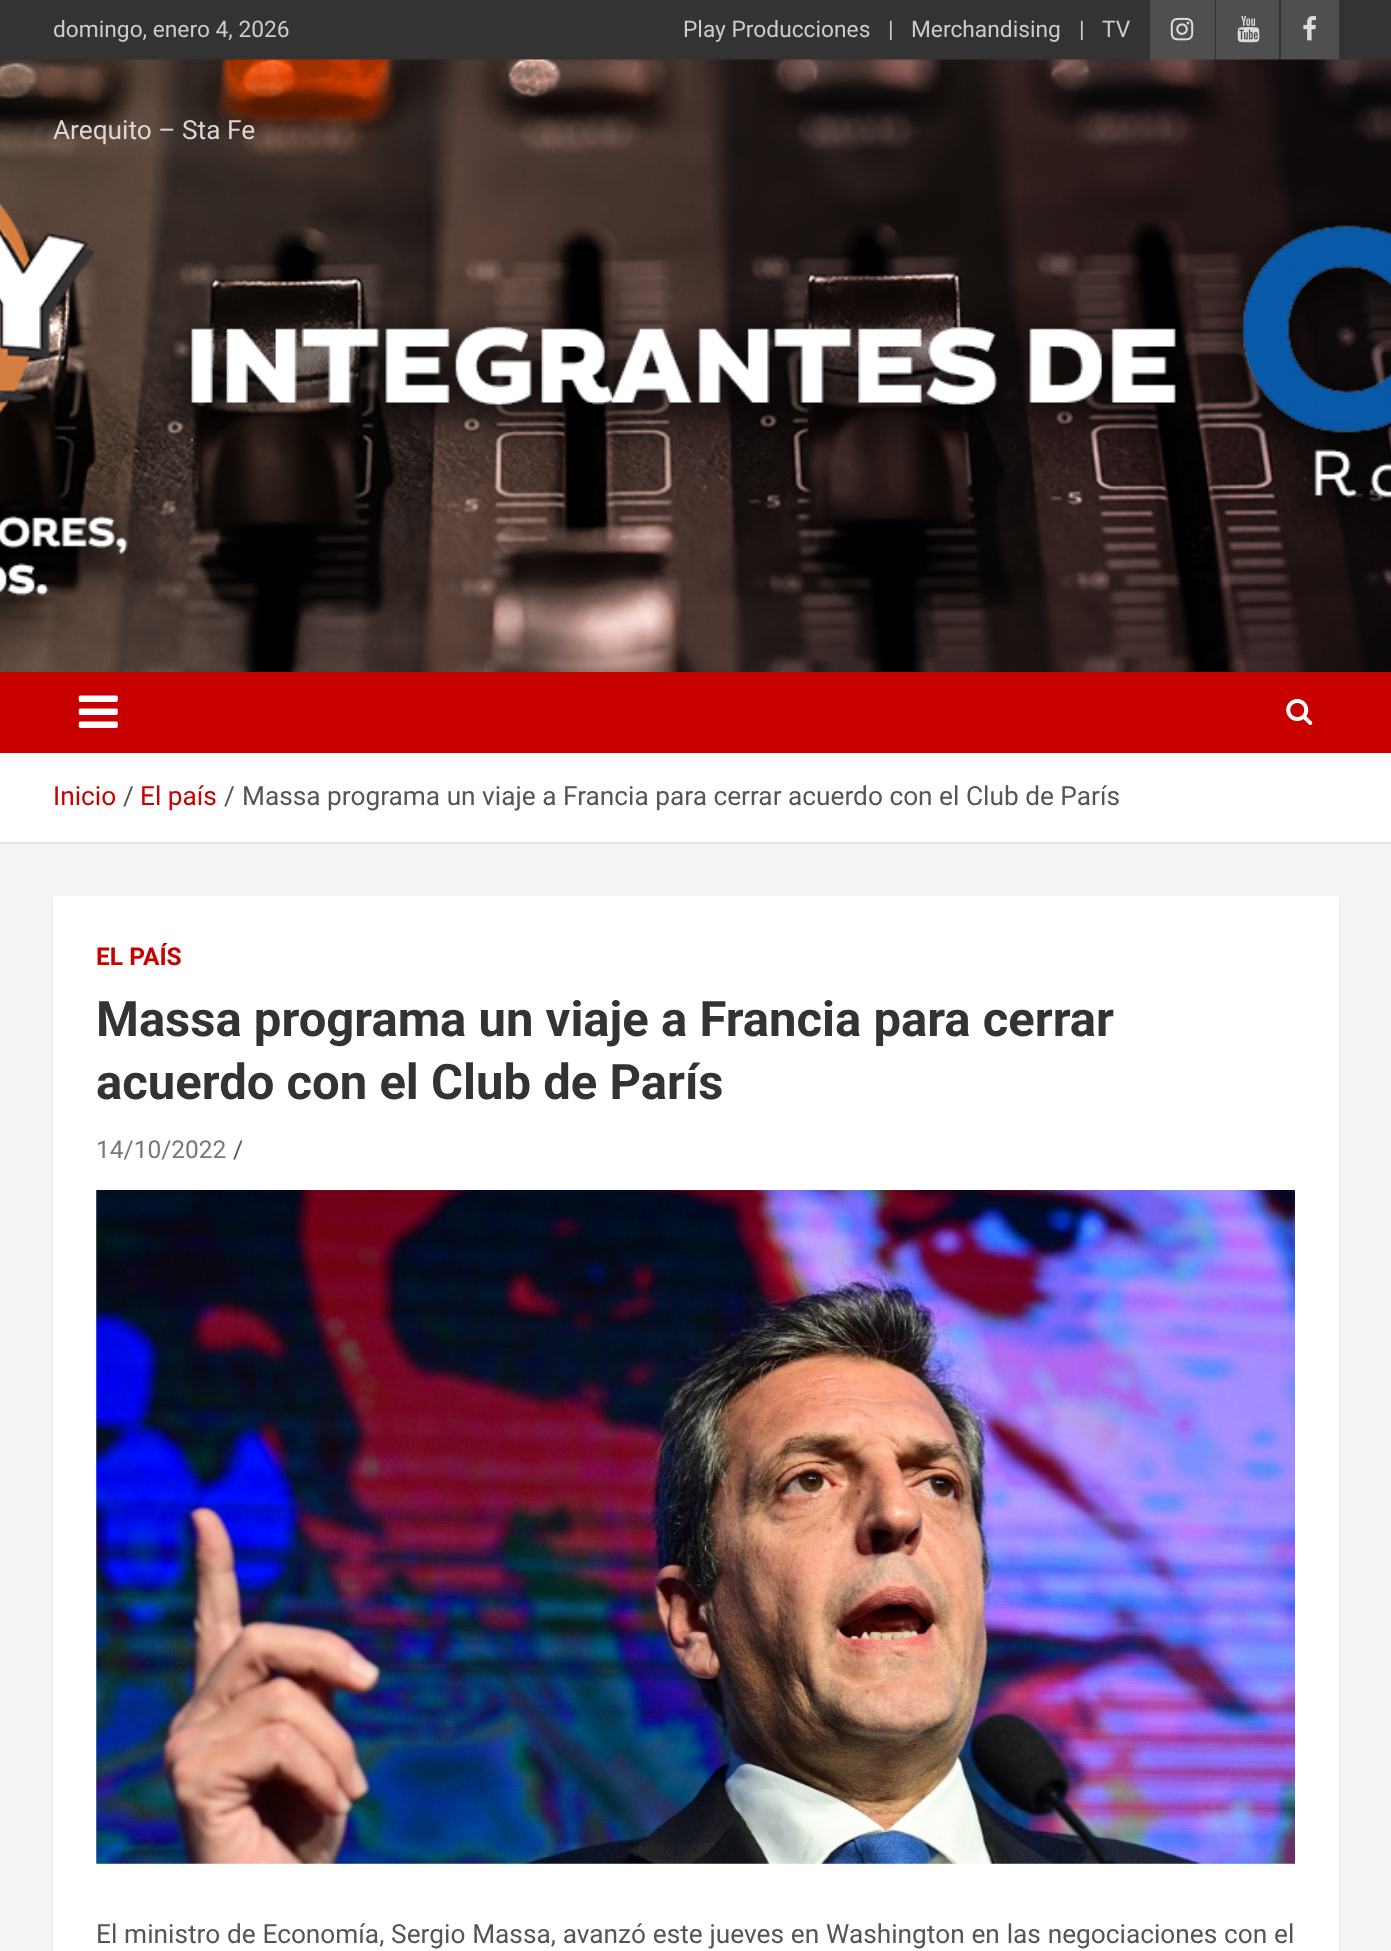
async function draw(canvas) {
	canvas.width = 1391;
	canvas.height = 1951;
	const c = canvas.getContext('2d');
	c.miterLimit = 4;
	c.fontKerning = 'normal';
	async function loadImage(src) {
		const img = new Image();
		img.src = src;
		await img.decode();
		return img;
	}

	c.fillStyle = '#f4f4f4';
	c.fillRect(0, 0, 1391, 1951);
	c.fillStyle = '#333';
	c.fillRect(0, 0, 1391, 60);
	c.font = '22.75px Roboto';
	c.fillStyle = '#ccc';
	for (const [text, x, y] of [
		['domingo, enero 4, 2026', 53, 37],
		['Play Producciones', 683, 37],
		['|', 888, 37],
		['Merchandising', 911, 37],
		['|', 1079, 37],
		['TV', 1102, 37],
	]) {
		c.fillText(text, x, y);
	}
	c.fillStyle = '#4f4f4f';
	c.fillRect(1150, 0, 65, 60);
	c.drawImage(await loadImage('img1.png'), 1170, 17, 24, 24);
	c.fillRect(1216, 0, 63, 60);
	c.drawImage(await loadImage('img2.png'), 1237, 16, 23, 27);
	c.fillRect(1281, 0, 58, 60);
	c.drawImage(await loadImage('img3.png'), 1303, 16, 14, 25);
	c.drawImage(await loadImage('img4.png'), 0, 59, 1391, 613);
	c.font = '26.25px Roboto';
	c.fillStyle = '#dbd7d6';
	c.fillText('Arequito – Sta Fe', 53, 139);
	c.fillStyle = '#c80000';
	c.fillRect(0, 672, 1391, 81);
	c.drawImage(await loadImage('img5.png'), 78, 695, 40, 33);
	c.drawImage(await loadImage('img6.png'), 1286, 699, 27, 26);
	c.fillStyle = '#fff';
	c.fillRect(0, 753, 1391, 89);
	c.fillStyle = '#e6e6e6';
	c.fillRect(0, 842, 1391, 2);
	c.fillStyle = '#c80000';
	c.fillText('Inicio', 53, 805);
	c.fillStyle = '#555';
	c.fillText('/', 123, 805);
	c.fillStyle = '#c80000';
	c.fillText('El país', 140, 805);
	c.fillStyle = '#555';
	c.fillText('/', 224, 805);
	c.fillText('Massa programa un viaje a Francia para cerrar acuerdo con el Club de París', 242, 805);
	c.fillStyle = '#0000001a';
	c.filter = 'blur(1px)';
	c.beginPath();
	c.rect(53, 898, 1286, 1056);
	c.fill();
	c.filter = 'none';
	c.fillStyle = '#fff';
	c.fillRect(53, 896, 1286, 1055);
	c.font = 'bold 24.5px Roboto';
	c.fillStyle = '#c80000';
	c.fillText('EL PAÍS', 96, 965);
	c.font = 'bold 49px Roboto';
	c.fillStyle = '#333';
	c.fillText('Massa programa un viaje a Francia para cerrar', 96, 1036);
	c.fillText('acuerdo con el Club de París', 96, 1099);
	c.font = '24.5px Roboto';
	c.fillStyle = '#777';
	c.fillText('14/10/2022', 96, 1158);
	c.fillStyle = '#555';
	c.fillText('/', 233, 1158);
	c.drawImage(await loadImage('img7.png'), 96, 1190, 1199, 674);
	c.wordSpacing = '0.3px';
	c.font = '26.25px Roboto';
	c.fillText('El ministro de Economía, Sergio Massa, avanzó este jueves en Washington en las negociaciones con el', 96, 1943);
}

draw(document.querySelector('canvas'));
